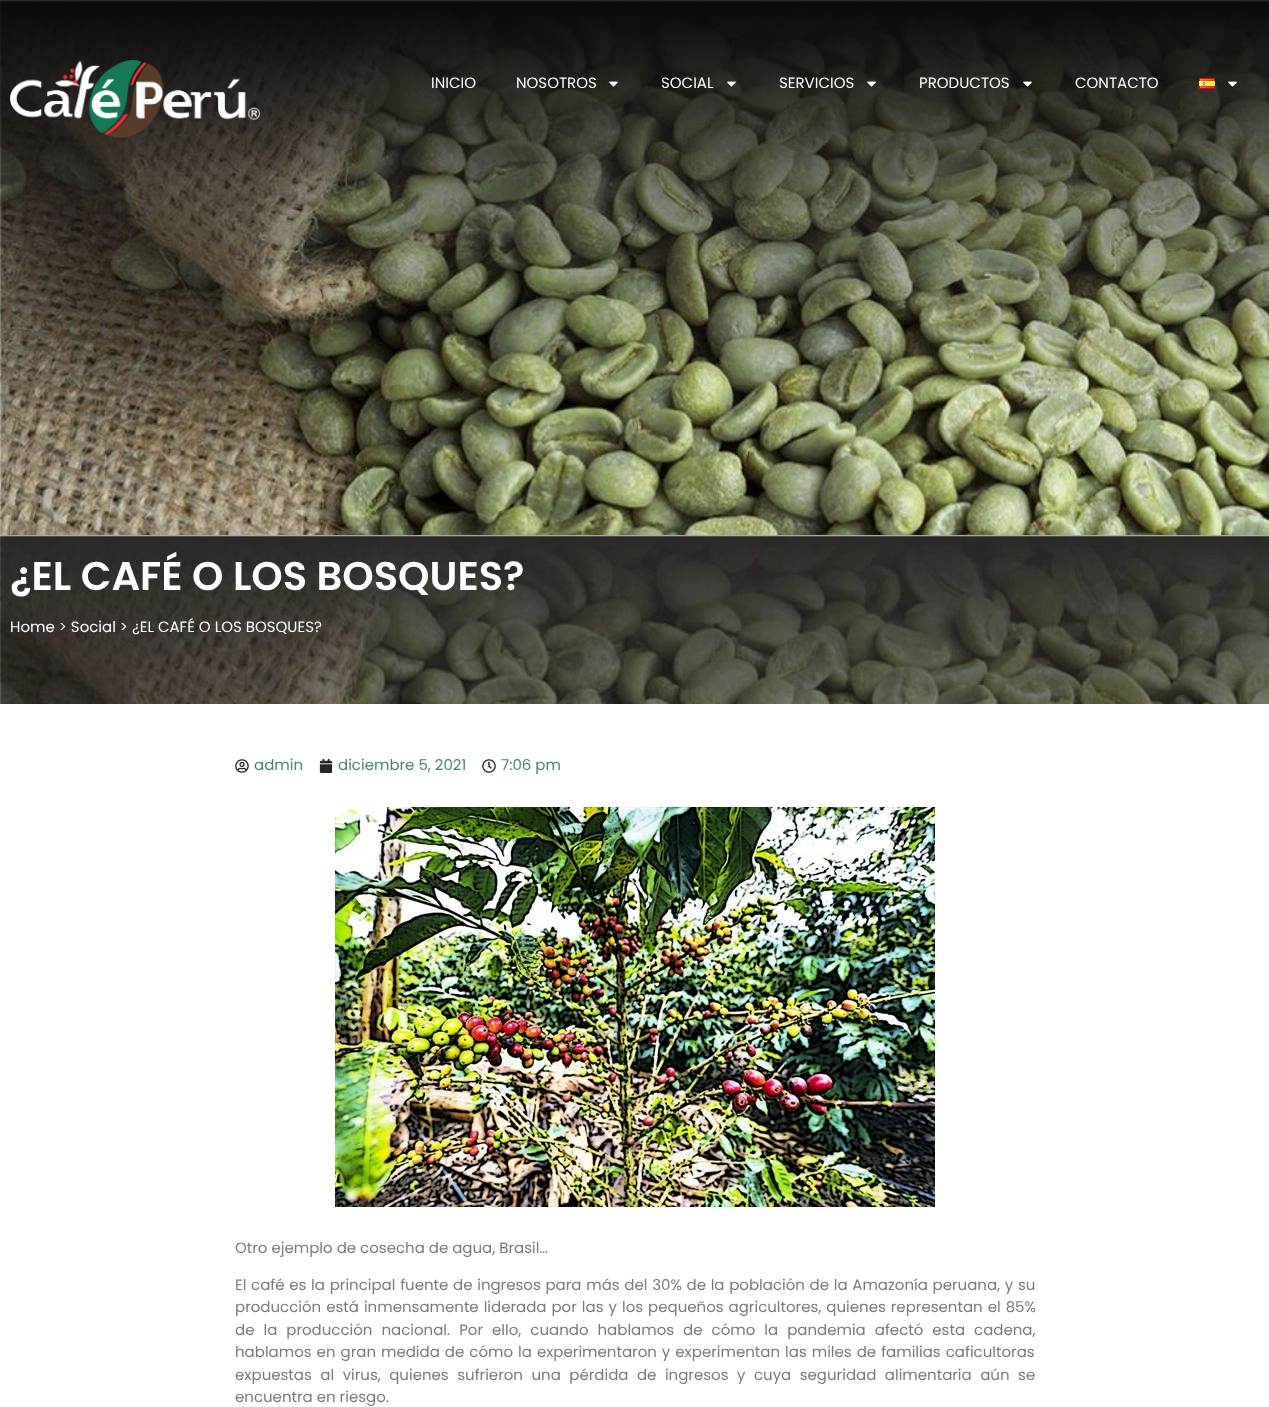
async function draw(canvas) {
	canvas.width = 1269;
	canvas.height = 1407;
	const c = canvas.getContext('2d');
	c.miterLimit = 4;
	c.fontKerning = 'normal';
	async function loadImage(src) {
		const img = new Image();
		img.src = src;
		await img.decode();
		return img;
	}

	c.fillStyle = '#fff';
	c.fillRect(0, 0, 1269, 1407);
	c.drawImage(await loadImage('img8.png'), 0, 0, 1269, 704);
	c.drawImage(await loadImage('img1.png'), 10, 60, 250, 78);
	c.font = '15px Poppins';
	c.fillText('INICIO', 431, 88);
	c.fillText('NOSOTROS', 516, 88);
	c.drawImage(await loadImage('img2.png'), 609, 81, 9, 6);
	c.fillText('SOCIAL', 661, 88);
	c.drawImage(await loadImage('img3.png'), 727, 81, 9, 6);
	c.fillText('SERVICIOS', 779, 88);
	c.drawImage(await loadImage('img4.png'), 867, 81, 9, 6);
	c.fillText('PRODUCTOS', 919, 88);
	c.drawImage(await loadImage('img5.png'), 1023, 81, 9, 6);
	c.fillText('CONTACTO', 1075, 88);
	c.drawImage(await loadImage('img6.png'), 1199, 78, 16, 11);
	c.drawImage(await loadImage('img7.png'), 1228, 81, 9, 6);
	c.font = '600 40px Poppins';
	c.fillText('¿EL CAFÉ O LOS BOSQUES?', 10, 590);
	c.font = '15px Poppins';
	c.fillText('Home > Social > ¿EL CAFÉ O LOS BOSQUES?', 10, 632);
	c.drawImage(await loadImage('img9.png'), 235, 759, 14, 14);
	c.fillStyle = '#46866c';
	c.fillText('admin', 254, 770);
	c.drawImage(await loadImage('img10.png'), 319, 759, 14, 14);
	c.fillText('diciembre 5, 2021', 338, 770);
	c.drawImage(await loadImage('img11.png'), 482, 759, 14, 14);
	c.fillText('7:06 pm', 501, 770);
	c.drawImage(await loadImage('img12.png'), 335, 807, 600, 400);
	c.fillStyle = '#7a7a7a';
	c.fillText('Otro ejemplo de cosecha de agua, Brasil…', 235, 1253);
	c.wordSpacing = '0.7px';
	c.fillText('El café es la principal fuente de ingresos para más del 30% de la población de la Amazonía peruana, y su', 235, 1290);
	c.wordSpacing = '1px';
	c.fillText('producción está inmensamente liderada por las y los pequeños agricultores, quienes representan el 85%', 235, 1312);
	c.wordSpacing = '5px';
	c.fillText('de la producción nacional. Por ello, cuando hablamos de cómo la pandemia afectó esta cadena,', 235, 1335);
	c.wordSpacing = '1px';
	c.fillText('hablamos en gran medida de cómo la experimentaron y experimentan las miles de familias caficultoras', 235, 1357);
	c.wordSpacing = '4.5px';
	c.fillText('expuestas al virus, quienes sufrieron una pérdida de ingresos y cuya seguridad alimentaria aún se', 235, 1380);
	c.wordSpacing = '0px';
	c.fillText('encuentra en riesgo.', 235, 1402);
}

draw(document.querySelector('canvas'));
